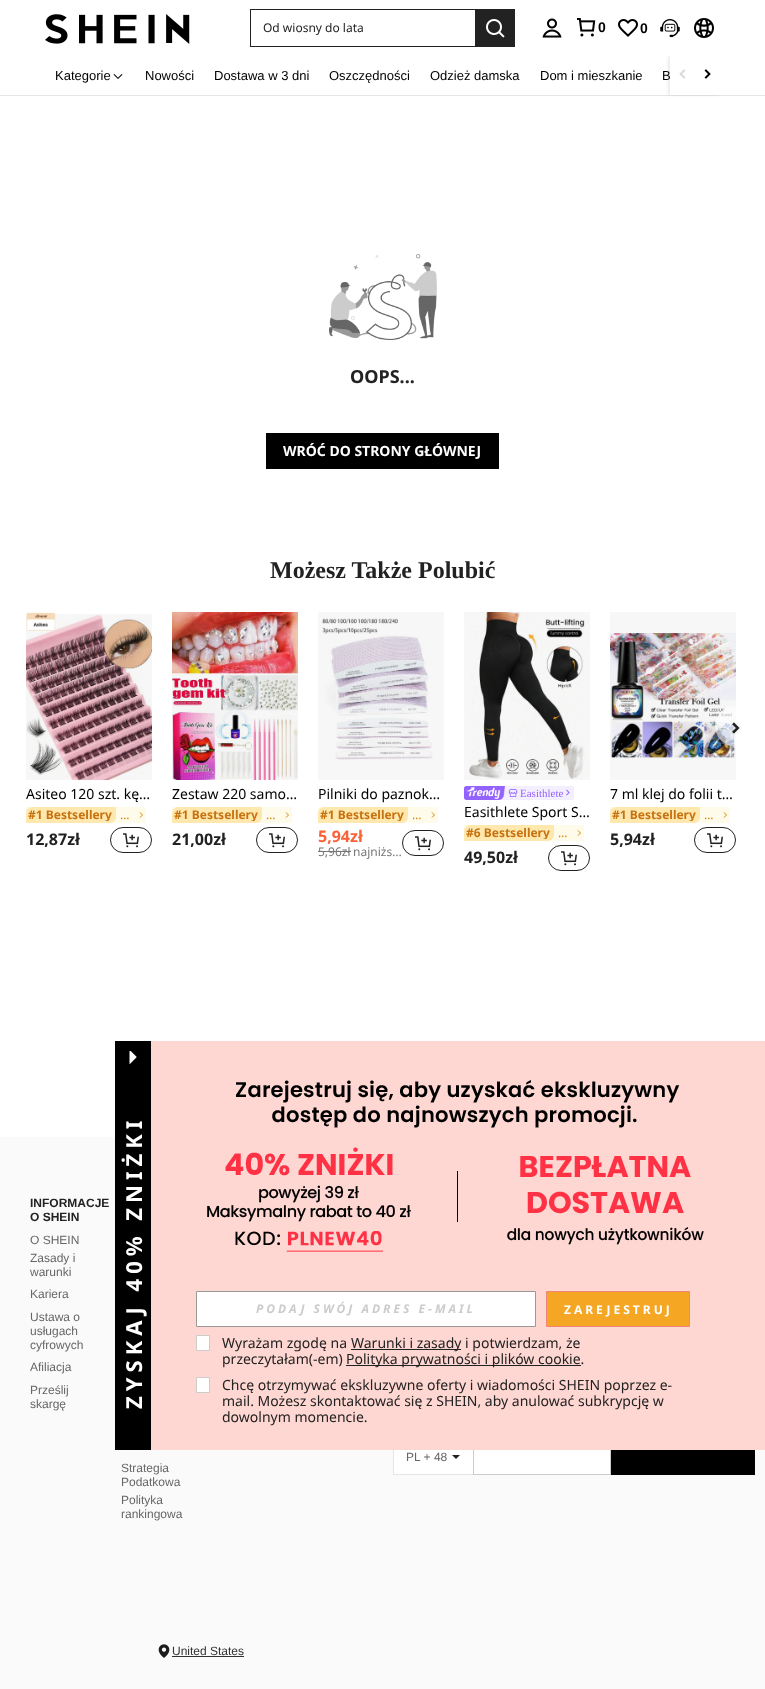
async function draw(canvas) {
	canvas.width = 765;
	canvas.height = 1689;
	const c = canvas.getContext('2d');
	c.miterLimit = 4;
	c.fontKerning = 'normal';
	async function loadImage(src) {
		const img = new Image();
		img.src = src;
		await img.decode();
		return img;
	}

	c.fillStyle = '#fff';
	c.fillRect(0, 0, 765, 1689);
	for (const [x, y, w, h, color] of [
		[610, 612, 126, 168, '#f7f7f7'],
		[464, 612, 126, 168, '#f7f7f7'],
		[318, 612, 126, 168, '#f7f7f7'],
		[0, 95, 765, 1, '#e5e5e5'],
	]) {
		c.fillStyle = color;
		c.fillRect(x, y, w, h);
	}
	c.fillStyle = '#00000014';
	c.filter = 'blur(1.5px)';
	c.beginPath();
	c.rect(668, 56, 50, 39);
	c.fill();
	c.filter = 'none';
	c.fillStyle = '#fff';
	c.fillRect(667, 54, 52, 2);
	c.drawImage(await loadImage('img1.png'), 45, 14, 145, 30);
	for (const [x, y, w, h, color] of [
		[250, 9, 225, 1, '#222'],
		[250, 46, 225, 1, '#222'],
		[250, 9, 1, 38, '#222'],
	]) {
		c.fillStyle = color;
		c.fillRect(x, y, w, h);
	}
	c.font = '12px Noto Sans';
	c.fillText('Od wiosny do lata', 263, 32);
	c.fillRect(475, 9, 40, 38);
	c.drawImage(await loadImage('img2.png'), 486, 19, 19, 19);
	c.drawImage(await loadImage('img3.png'), 542, 18, 20, 20);
	c.drawImage(await loadImage('img4.png'), 577, 18, 19, 19);
	c.font = 'bold 14px Liberation Sans';
	c.fillStyle = '#000';
	c.fillText('0', 598, 32);
	c.drawImage(await loadImage('img5.png'), 618, 19, 20, 18);
	c.fillText('0', 640, 33);
	c.drawImage(await loadImage('img6.png'), 660, 19, 20, 19);
	c.drawImage(await loadImage('img7.png'), 694, 18, 20, 20);
	c.font = '13px Liberation Sans';
	c.fillText('Kategorie', 55, 80);
	c.drawImage(await loadImage('img8.png'), 113, 74, 10, 5);
	for (const [text, x, y] of [
		['Nowości', 145, 80],
		['Dostawa w 3 dni', 214, 80],
		['Oszczędności', 329, 80],
		['Odzież damska', 430, 80],
		['Dom i mieszkanie', 540, 80],
		['B', 662, 80],
	]) {
		c.fillText(text, x, y);
	}
	c.fillStyle = '#fff';
	c.fillRect(670, 56, 50, 39);
	c.drawImage(await loadImage('img9.png'), 679, 69, 7, 10);
	c.drawImage(await loadImage('img10.png'), 704, 69, 7, 10);
	c.drawImage(await loadImage('img11.png'), 329, 254, 108, 86);
	c.font = 'bold 18px Noto Sans';
	c.fillStyle = '#222';
	c.fillText('OOPS...', 350, 383);
	c.fillStyle = '#000';
	c.fillRect(266, 433, 233, 36);
	c.font = 'bold 14px Noto Sans';
	c.fillStyle = '#fff';
	c.fillText('WRÓĆ DO STRONY GŁÓWNEJ', 283, 456);
	c.font = 'bold 24px Liberation Serif';
	c.fillStyle = '#222';
	c.fillText('Możesz Także Polubić', 270, 578);
	c.drawImage(await loadImage('img22.png'), 610, 633, 126, 126);
	c.fillStyle = '#ffffff99';
	c.beginPath();
	c.arc(735, 726, 20, 0, 2 * Math.PI);
	c.fill();
	c.drawImage(await loadImage('img12.png'), 732, 722, 8, 12);
	c.drawImage(await loadImage('img14.png'), 26, 614, 126, 166);
	c.drawImage(await loadImage('img13.png'), 26, 612, 30, 19);
	c.font = '14px Noto Sans';
	c.fillStyle = '#000';
	c.fillText('Asiteo 120 szt. kę…', 26, 799);
	c.fillStyle = '#fffbeb';
	c.fillRect(26, 807, 120, 16);
	c.fillStyle = '#ffe8ae';
	c.beginPath();
	c.roundRect(26, 807, 90, 16, [6, 1, 6, 1]);
	c.fill();
	c.save();
	c.beginPath();
	c.rect(28, 808, 84, 13);
	c.clip();
	c.font = 'bold 12px Noto Sans';
	c.fillStyle = '#c77210';
	c.fillText('#1 Bestsellery', 28, 819);
	c.restore();
	c.beginPath();
	c.moveTo(140, 812.5);
	c.lineTo(142.5, 815);
	c.lineTo(140, 817.5);
	c.strokeStyle = '#d58700';
	c.stroke();
	c.font = '12px Noto Sans';
	c.fillStyle = '#d58700';
	c.fillText('…', 120, 819);
	c.font = 'bold 16px Noto Sans';
	c.fillStyle = '#222';
	c.fillText('12,87zł', 26, 845);
	c.beginPath();
	c.roundRect(110.5, 827.5, 41, 25, 12.5);
	c.strokeStyle = '#222';
	c.stroke();
	c.drawImage(await loadImage('img15.png'), 123, 833, 16, 15);
	c.drawImage(await loadImage('img16.png'), 172, 612, 126, 168);
	c.font = '14px Noto Sans';
	c.fillStyle = '#000';
	c.fillText('Zestaw 220 samo…', 172, 799);
	c.fillStyle = '#fffbeb';
	c.fillRect(172, 807, 120, 16);
	c.fillStyle = '#ffe8ae';
	c.beginPath();
	c.roundRect(172, 807, 90, 16, [6, 1, 6, 1]);
	c.fill();
	c.save();
	c.beginPath();
	c.rect(174, 808, 84, 13);
	c.clip();
	c.font = 'bold 12px Noto Sans';
	c.fillStyle = '#c77210';
	c.fillText('#1 Bestsellery', 174, 819);
	c.restore();
	c.beginPath();
	c.moveTo(286, 812.5);
	c.lineTo(288.5, 815);
	c.lineTo(286, 817.5);
	c.strokeStyle = '#d58700';
	c.stroke();
	c.font = '12px Noto Sans';
	c.fillStyle = '#d58700';
	c.fillText('…', 266, 819);
	c.font = 'bold 16px Noto Sans';
	c.fillStyle = '#222';
	c.fillText('21,00zł', 172, 845);
	c.beginPath();
	c.roundRect(256.5, 827.5, 41, 25, 12.5);
	c.strokeStyle = '#222';
	c.stroke();
	c.drawImage(await loadImage('img15.png'), 269, 833, 16, 15);
	c.drawImage(await loadImage('img17.png'), 322, 618, 117, 142);
	c.font = '14px Noto Sans';
	c.fillStyle = '#000';
	c.fillText('Pilniki do paznok…', 318, 799);
	c.fillStyle = '#fffbeb';
	c.fillRect(318, 807, 120, 16);
	c.fillStyle = '#ffe8ae';
	c.beginPath();
	c.roundRect(318, 807, 90, 16, [6, 1, 6, 1]);
	c.fill();
	c.save();
	c.beginPath();
	c.rect(320, 808, 84, 13);
	c.clip();
	c.font = 'bold 12px Noto Sans';
	c.fillStyle = '#c77210';
	c.fillText('#1 Bestsellery', 320, 819);
	c.restore();
	c.beginPath();
	c.moveTo(432, 812.5);
	c.lineTo(434.5, 815);
	c.lineTo(432, 817.5);
	c.strokeStyle = '#d58700';
	c.stroke();
	c.font = '12px Noto Sans';
	c.fillStyle = '#d58700';
	c.fillText('…', 412, 819);
	c.font = 'bold 16px Noto Sans';
	c.fillStyle = '#fa6338';
	c.fillText('5,94zł', 318, 842);
	c.font = '12px Noto Sans';
	c.fillStyle = '#767676';
	c.fillText('5,96zł', 318, 856);
	c.fillRect(318, 851, 33, 1);
	c.fillText('najniżs…', 353, 856);
	c.beginPath();
	c.roundRect(402.5, 830.5, 41, 25, 12.5);
	c.strokeStyle = '#222';
	c.stroke();
	c.drawImage(await loadImage('img15.png'), 415, 836, 16, 15);
	c.drawImage(await loadImage('img18.png'), 469, 612, 116, 167);
	c.fillStyle = '#f4efff';
	c.beginPath();
	c.roundRect(464, 786, 110, 14, 2);
	c.fill();
	c.drawImage(await loadImage('img19.png'), 464, 786, 41, 14);
	c.drawImage(await loadImage('img20.png'), 508, 789, 10, 8);
	c.font = '11px Liberation Serif';
	c.fillStyle = '#9462ff';
	c.fillText('Easithlete', 520, 797);
	c.drawImage(await loadImage('img21.png'), 566, 789, 4, 7);
	c.font = '14px Noto Sans';
	c.fillStyle = '#000';
	c.fillText('Easithlete Sport S…', 464, 817);
	c.fillStyle = '#fffbeb';
	c.fillRect(464, 825, 120, 16);
	c.fillStyle = '#ffe8ae';
	c.beginPath();
	c.roundRect(464, 825, 90, 16, [6, 1, 6, 1]);
	c.fill();
	c.save();
	c.beginPath();
	c.rect(466, 826, 84, 13);
	c.clip();
	c.font = 'bold 12px Noto Sans';
	c.fillStyle = '#c77210';
	c.fillText('#6 Bestsellery', 466, 837);
	c.restore();
	c.beginPath();
	c.moveTo(578, 830.5);
	c.lineTo(580.5, 833);
	c.lineTo(578, 835.5);
	c.strokeStyle = '#d58700';
	c.stroke();
	c.font = '12px Noto Sans';
	c.fillStyle = '#d58700';
	c.fillText('…', 558, 837);
	c.font = 'bold 16px Noto Sans';
	c.fillStyle = '#222';
	c.fillText('49,50zł', 464, 863);
	c.beginPath();
	c.roundRect(548.5, 845.5, 41, 25, 12.5);
	c.strokeStyle = '#222';
	c.stroke();
	c.drawImage(await loadImage('img15.png'), 561, 851, 16, 15);
	c.font = '14px Noto Sans';
	c.fillStyle = '#000';
	c.fillText('7 ml klej do folii t…', 610, 799);
	c.fillStyle = '#fffbeb';
	c.fillRect(610, 807, 120, 16);
	c.fillStyle = '#ffe8ae';
	c.beginPath();
	c.roundRect(610, 807, 90, 16, [6, 1, 6, 1]);
	c.fill();
	c.save();
	c.beginPath();
	c.rect(612, 808, 84, 13);
	c.clip();
	c.font = 'bold 12px Noto Sans';
	c.fillStyle = '#c77210';
	c.fillText('#1 Bestsellery', 612, 819);
	c.restore();
	c.beginPath();
	c.moveTo(724, 812.5);
	c.lineTo(726.5, 815);
	c.lineTo(724, 817.5);
	c.strokeStyle = '#d58700';
	c.stroke();
	c.font = '12px Noto Sans';
	c.fillStyle = '#d58700';
	c.fillText('…', 704, 819);
	c.font = 'bold 16px Noto Sans';
	c.fillStyle = '#222';
	c.fillText('5,94zł', 610, 845);
	c.beginPath();
	c.roundRect(694.5, 827.5, 41, 25, 12.5);
	c.strokeStyle = '#222';
	c.stroke();
	c.drawImage(await loadImage('img15.png'), 707, 833, 16, 15);
	c.fillStyle = '#fafafa';
	c.fillRect(0, 1137, 765, 552);
	c.font = 'bold 12px Liberation Sans';
	c.fillStyle = '#222';
	c.fillText('INFORMACJE', 30, 1207);
	c.fillText('O SHEIN', 30, 1221);
	c.font = '12px Liberation Sans';
	c.fillStyle = '#666';
	for (const [text, x, y] of [
		['O SHEIN', 30, 1244],
		['Zasady i', 30, 1262],
		['warunki', 30, 1276],
		['Kariera', 30, 1298],
		['Ustawa o', 30, 1321],
		['usługach', 30, 1335],
		['cyfrowych', 30, 1349],
		['Afiliacja', 30, 1371],
		['Prześlij', 30, 1394],
		['skargę', 30, 1408],
		['Strategia', 121, 1472],
		['Podatkowa', 121, 1486],
		['Polityka', 121, 1504],
		['rankingowa', 121, 1518],
	]) {
		c.fillText(text, x, y);
	}
	for (const [x, y, w, h, color] of [
		[394, 1450, 79, 24, '#fff'],
		[393, 1474, 80, 1, '#e5e5e5'],
		[393, 1450, 1, 25, '#e5e5e5'],
	]) {
		c.fillStyle = color;
		c.fillRect(x, y, w, h);
	}
	c.fillStyle = '#666';
	c.fillText('PL + 48', 406, 1461);
	c.fillStyle = '#222';
	c.beginPath();
	c.moveTo(452, 1455);
	c.lineTo(460, 1455);
	c.lineTo(456, 1459);
	c.closePath();
	c.fill();
	c.fillStyle = '#fff';
	c.fillRect(474, 1450, 136, 24);
	c.strokeStyle = '#ccc';
	c.strokeRect(473.5, 1439.5, 137, 35);
	c.fillStyle = '#000';
	c.fillRect(611, 1450, 144, 25);
	c.drawImage(await loadImage('img23.png'), 158, 1644, 12, 14);
	c.fillStyle = '#323232';
	c.fillText('United States', 172, 1655);
	c.fillRect(172, 1656, 72, 1);
	c.fillStyle = '#000';
	c.fillRect(115, 1041, 36, 409);
	c.drawImage(await loadImage('img24.png'), 129, 1051, 8, 14);
	c.letterSpacing = '5px';
	c.font = 'bold 22px Noto Sans';
	c.fillStyle = '#fff';
	c.save();
	c.translate(142, 1409);
	c.rotate(-90 * Math.PI / 180);
	c.fillText('ZYSKAJ 40% ZNIŻKI', 0, 0);
	c.restore();
	c.fillStyle = '#ffd7d2';
	c.fillRect(151, 1041, 614, 409);
	c.drawImage(await loadImage('img25.png'), 207, 1080, 497, 172);
	c.fillStyle = '#fff';
	c.beginPath();
	c.rect(196.5, 1291.5, 339, 35);
	c.fill();
	c.strokeStyle = '#999';
	c.stroke();
	c.letterSpacing = '3px';
	c.font = 'italic bold 12px Noto Sans';
	c.fillStyle = '#ccc';
	c.fillText('PODAJ SWÓJ ADRES E-MAIL', 256, 1313);
	c.fillStyle = '#f5a623';
	c.beginPath();
	c.rect(546.5, 1291.5, 143, 35);
	c.fill();
	c.strokeStyle = '#f08679';
	c.stroke();
	c.font = 'bold 12px Noto Sans';
	c.fillStyle = '#fff';
	c.fillText('ZAREJESTRUJ', 564, 1314);
	c.beginPath();
	c.rect(196.5, 1335.5, 13, 15);
	c.fill();
	c.strokeStyle = '#ccc';
	c.stroke();
	c.letterSpacing = '0px';
	c.font = '14px Noto Sans';
	c.fillStyle = '#222';
	c.fillText('Wyrażam zgodę na', 222, 1348);
	c.fillRect(351, 1349, 110, 1);
	c.fillText('Warunki i zasady i potwierdzam, że', 351, 1348);
	c.fillText('przeczytałam(-em)', 222, 1364);
	c.fillRect(346, 1365, 235, 1);
	c.fillText('Polityka prywatności i plików cookie.', 346, 1364);
	c.fillStyle = '#fff';
	c.beginPath();
	c.rect(196.5, 1377.5, 13, 15);
	c.fill();
	c.stroke();
	c.fillStyle = '#222';
	for (const [text, x, y] of [
		['Chcę otrzymywać ekskluzywne oferty i wiadomości SHEIN poprzez e-', 222, 1390],
		['mail. Możesz skontaktować się z SHEIN, aby anulować subkrypcję w', 222, 1406],
		['dowolnym momencie.', 222, 1422],
	]) {
		c.fillText(text, x, y);
	}
}

draw(document.querySelector('canvas'));
